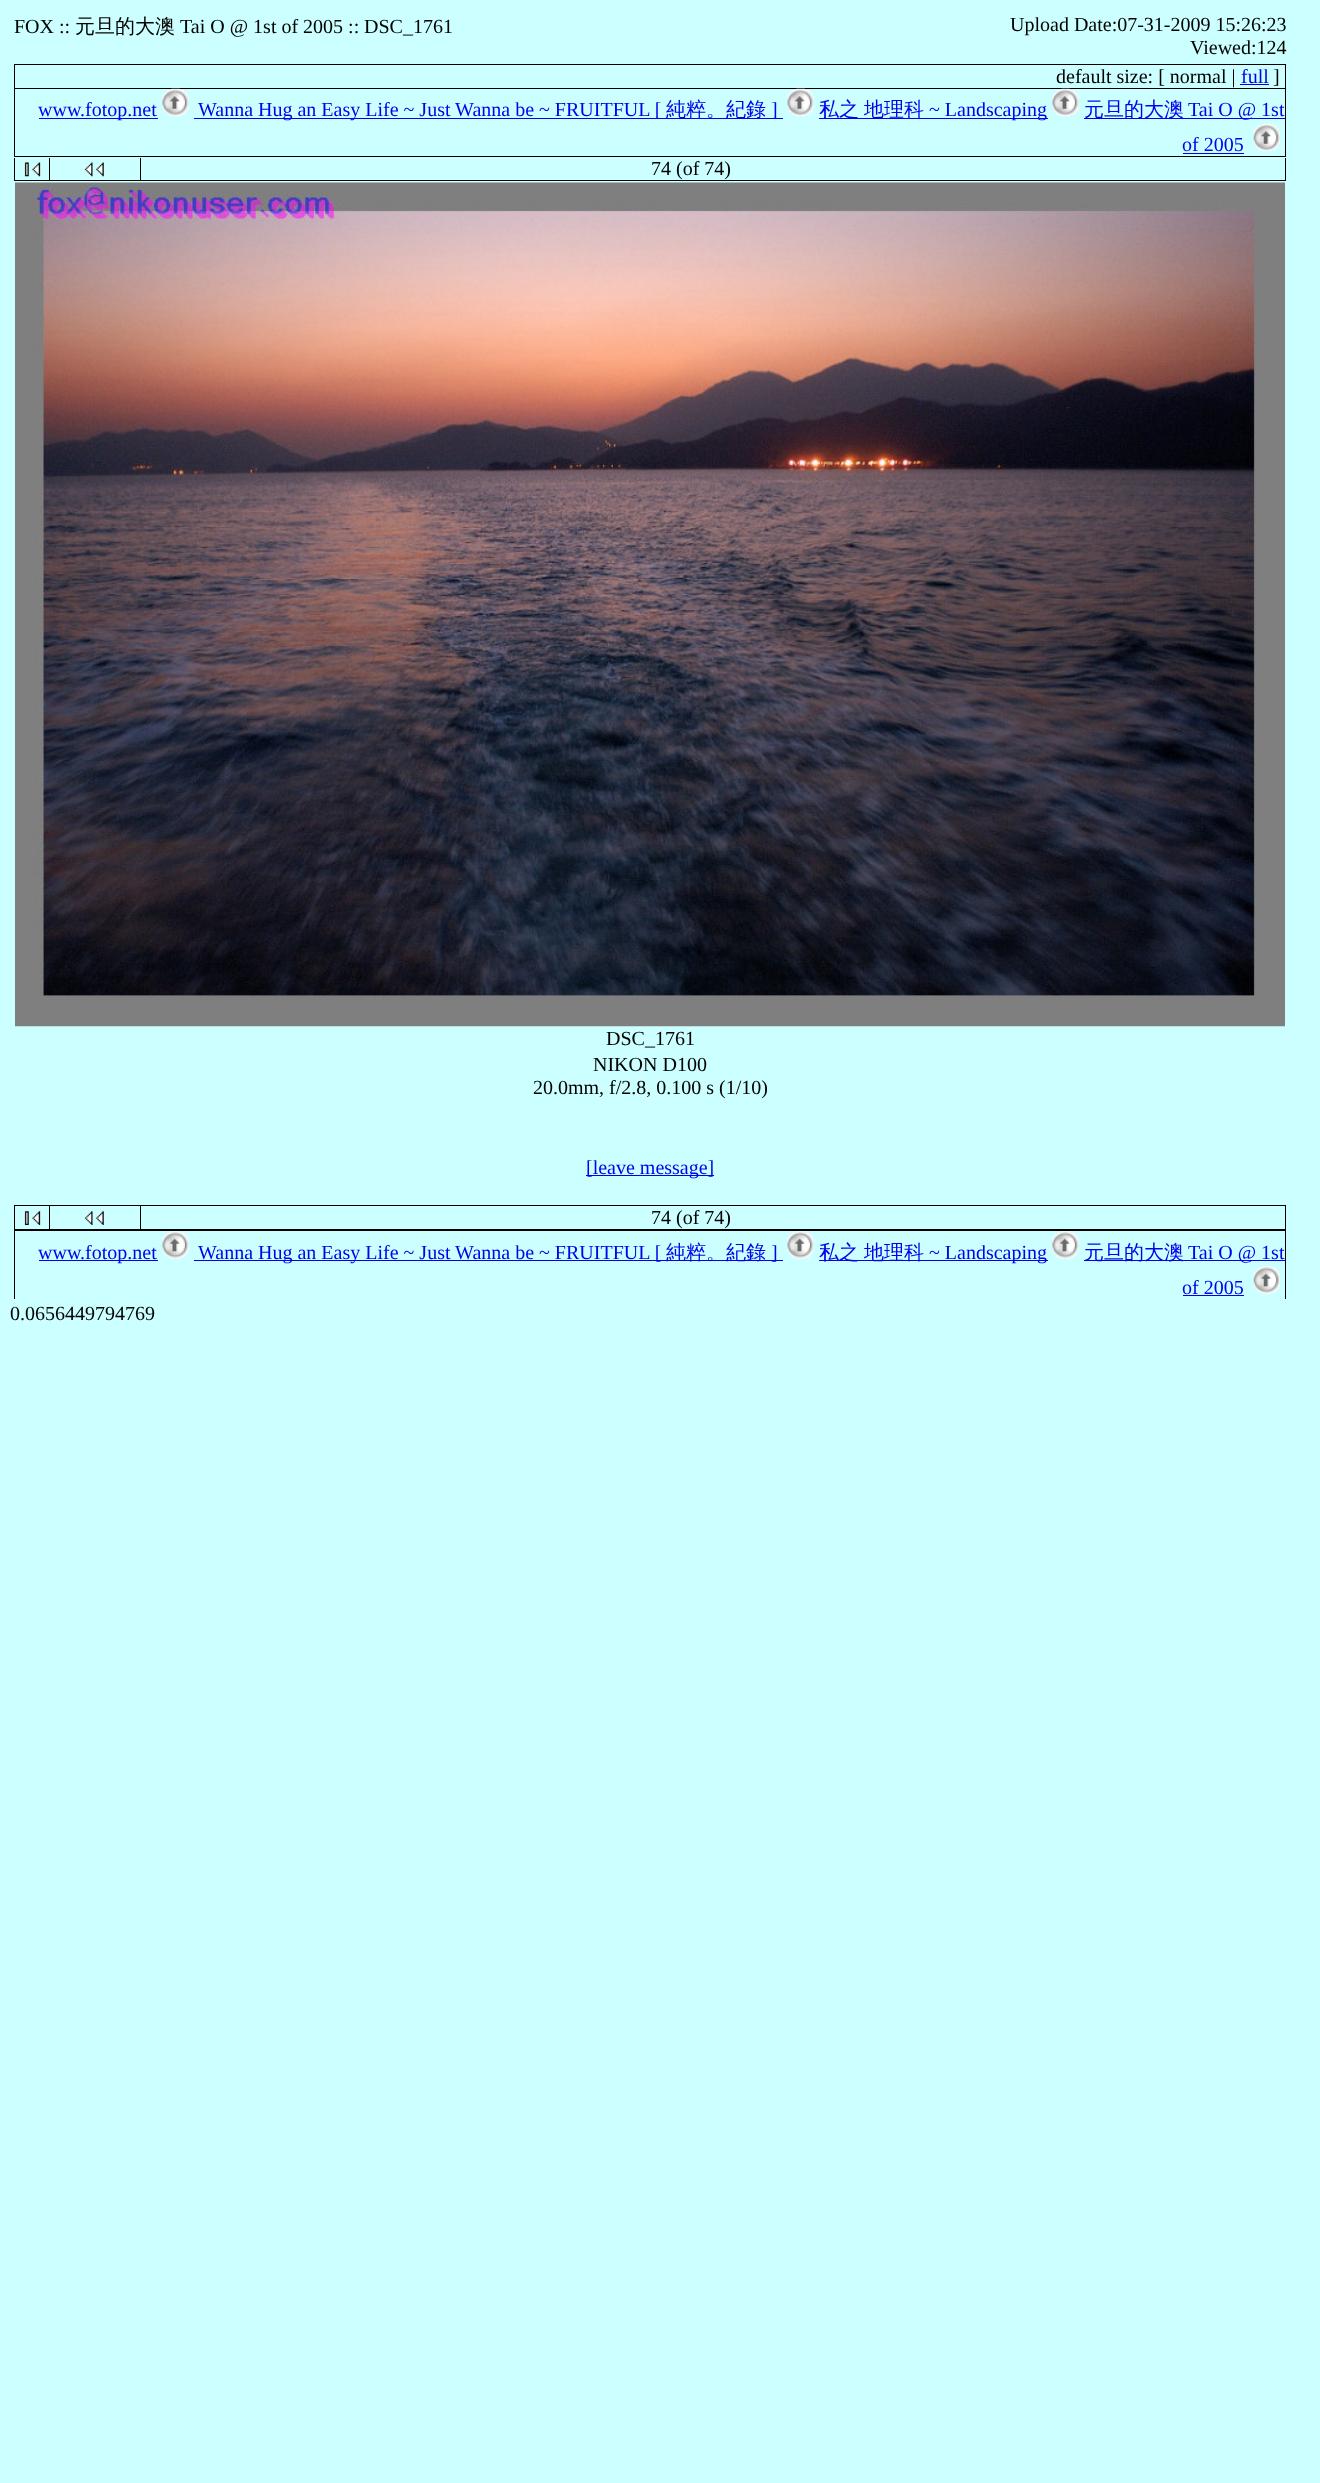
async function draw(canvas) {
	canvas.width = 1320;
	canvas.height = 2483;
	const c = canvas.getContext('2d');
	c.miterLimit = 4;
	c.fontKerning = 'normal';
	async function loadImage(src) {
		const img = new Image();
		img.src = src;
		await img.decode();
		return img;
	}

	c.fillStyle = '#cff';
	c.fillRect(0, 0, 1320, 2483);
	c.font = '20px Liberation Serif';
	c.fillStyle = '#000';
	c.fillText('FOX ::', 14, 33);
	c.font = '500 20px WenQuanYi Zen Hei';
	c.fillText('元旦的大澳', 75, 33);
	c.font = '20px Liberation Serif';
	for (const [text, x, y] of [
		['Tai O @ 1st of 2005 ::', 180, 33],
		['DSC_1761', 364, 33],
		['Upload Date:07-31-2009 15:26:23', 1010, 31],
		['Viewed:124', 1190, 54],
	]) {
		c.fillText(text, x, y);
	}
	c.fillRect(14, 64, 1272, 1);
	c.fillRect(14, 65, 1, 23);
	c.fillText('default size: [ normal |', 1056, 83);
	c.fillStyle = '#00e';
	c.fillText('full', 1241, 83);
	c.fillRect(1240, 84, 29, 1);
	c.fillStyle = '#000';
	c.fillText(']', 1273, 83);
	for (const [x, y, w, h, color] of [
		[1285, 65, 1, 23, '#000'],
		[14, 88, 1272, 1, '#000'],
		[14, 89, 1, 67, '#000'],
		[39, 118, 119, 1, '#00e'],
	]) {
		c.fillStyle = color;
		c.fillRect(x, y, w, h);
	}
	c.fillText('www.fotop.net', 38, 116);
	c.drawImage(await loadImage('img1.png'), 162, 88, 27, 29);
	c.fillRect(194, 118, 589, 1);
	c.fillText('Wanna Hug an Easy Life ~ Just Wanna be ~ FRUITFUL [', 198, 116);
	c.font = '500 20px WenQuanYi Zen Hei';
	c.fillText('純粹。紀錄', 666, 116);
	c.font = '20px Liberation Serif';
	c.fillText(']', 771, 116);
	c.drawImage(await loadImage('img1.png'), 787, 88, 27, 29);
	c.fillRect(819, 118, 229, 1);
	c.font = '500 20px WenQuanYi Zen Hei';
	c.fillText('私之', 819, 116);
	c.fillText('地理科', 864, 116);
	c.font = '20px Liberation Serif';
	c.fillText('~ Landscaping', 929, 116);
	c.drawImage(await loadImage('img2.png'), 1052, 88, 27, 29);
	c.fillRect(1084, 118, 201, 1);
	c.font = '500 20px WenQuanYi Zen Hei';
	c.fillText('元旦的大澳', 1084, 116);
	c.font = '20px Liberation Serif';
	c.fillText('Tai O @ 1st', 1188, 116);
	c.fillText('of 2005', 1182, 151);
	c.fillRect(1183, 153, 61, 1);
	c.drawImage(await loadImage('img3.png'), 1253, 123, 27, 29);
	for (const [x, y, w, h, color] of [
		[1285, 89, 1, 67, '#000'],
		[14, 156, 1272, 1, '#000'],
		[14, 158, 1, 22, '#000'],
	]) {
		c.fillStyle = color;
		c.fillRect(x, y, w, h);
	}
	c.drawImage(await loadImage('img4.png'), 24, 162, 17, 15);
	c.fillRect(49, 158, 1, 22);
	c.drawImage(await loadImage('img5.png'), 84, 162, 20, 15);
	c.fillRect(140, 158, 1, 22);
	c.fillText('74 (of 74)', 651, 175);
	c.fillRect(1285, 158, 1, 22);
	c.fillRect(14, 180, 1272, 1);
	c.drawImage(await loadImage('img6.png'), 15, 182, 1270, 845);
	for (const [text, x, y] of [
		['DSC_1761', 606, 1045],
		['NIKON D100', 593, 1071],
		['20.0mm, f/2.8, 0.100 s (1/10)', 533, 1094],
	]) {
		c.fillText(text, x, y);
	}
	c.fillStyle = '#00e';
	c.fillRect(586, 1175, 128, 1);
	c.fillText('[leave message]', 586, 1174);
	c.fillStyle = '#000';
	c.fillRect(14, 1205, 1272, 1);
	c.fillRect(14, 1206, 1, 23);
	c.drawImage(await loadImage('img7.png'), 24, 1211, 17, 14);
	c.fillRect(49, 1206, 1, 23);
	c.drawImage(await loadImage('img8.png'), 84, 1211, 20, 14);
	c.fillRect(140, 1206, 1, 23);
	c.fillText('74 (of 74)', 651, 1224);
	for (const [x, y, w, h, color] of [
		[1285, 1206, 1, 23, '#000'],
		[14, 1229, 1272, 2, '#000'],
		[14, 1231, 1, 68, '#000'],
		[39, 1260, 119, 1, '#00e'],
	]) {
		c.fillStyle = color;
		c.fillRect(x, y, w, h);
	}
	c.fillText('www.fotop.net', 38, 1259);
	c.drawImage(await loadImage('img9.png'), 162, 1231, 27, 28);
	c.fillRect(194, 1260, 589, 1);
	c.fillText('Wanna Hug an Easy Life ~ Just Wanna be ~ FRUITFUL [', 198, 1259);
	c.font = '500 20px WenQuanYi Zen Hei';
	c.fillText('純粹。紀錄', 666, 1259);
	c.font = '20px Liberation Serif';
	c.fillText(']', 771, 1259);
	c.drawImage(await loadImage('img9.png'), 787, 1231, 27, 28);
	c.fillRect(819, 1260, 229, 1);
	c.font = '500 20px WenQuanYi Zen Hei';
	c.fillText('私之', 819, 1259);
	c.fillText('地理科', 864, 1259);
	c.font = '20px Liberation Serif';
	c.fillText('~ Landscaping', 929, 1259);
	c.drawImage(await loadImage('img10.png'), 1052, 1231, 27, 28);
	c.fillRect(1084, 1260, 201, 1);
	c.font = '500 20px WenQuanYi Zen Hei';
	c.fillText('元旦的大澳', 1084, 1259);
	c.font = '20px Liberation Serif';
	c.fillText('Tai O @ 1st', 1188, 1259);
	c.fillText('of 2005', 1182, 1294);
	c.fillRect(1183, 1295, 61, 1);
	c.drawImage(await loadImage('img11.png'), 1253, 1266, 27, 28);
	c.fillStyle = '#000';
	c.fillRect(1285, 1231, 1, 68);
	c.fillText('0.0656449794769', 10, 1320);
}

draw(document.querySelector('canvas'));
